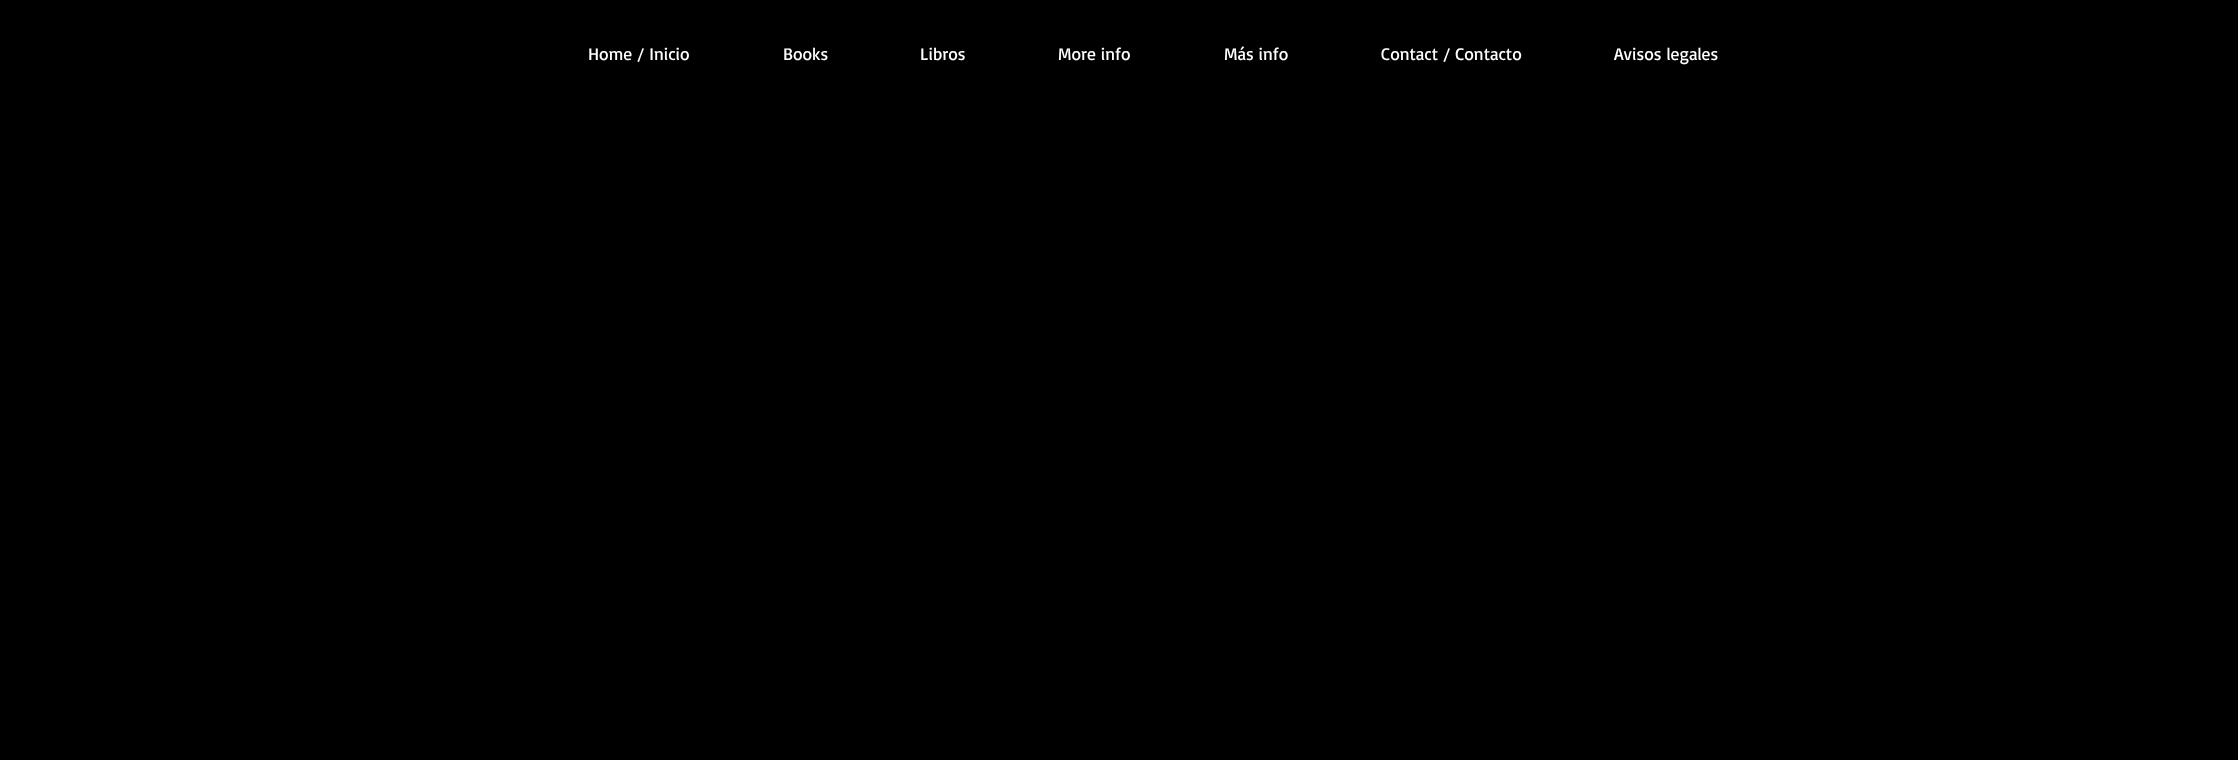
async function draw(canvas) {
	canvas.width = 2238;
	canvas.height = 760;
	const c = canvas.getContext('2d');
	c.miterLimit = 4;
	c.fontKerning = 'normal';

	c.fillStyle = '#000';
	c.fillRect(0, 0, 2238, 760);
	c.font = '17.5px Basic';
	c.fillStyle = '#fff';
	for (const [text, x, y] of [
		['Home / Inicio', 588, 60],
		['Books', 783, 60],
		['Libros', 920, 60],
		['More info', 1058, 60],
		['Más info', 1224, 60],
		['Contact / Contacto', 1381, 60],
		['Avisos legales', 1614, 60],
	]) {
		c.fillText(text, x, y);
	}
}

draw(document.querySelector('canvas'));
